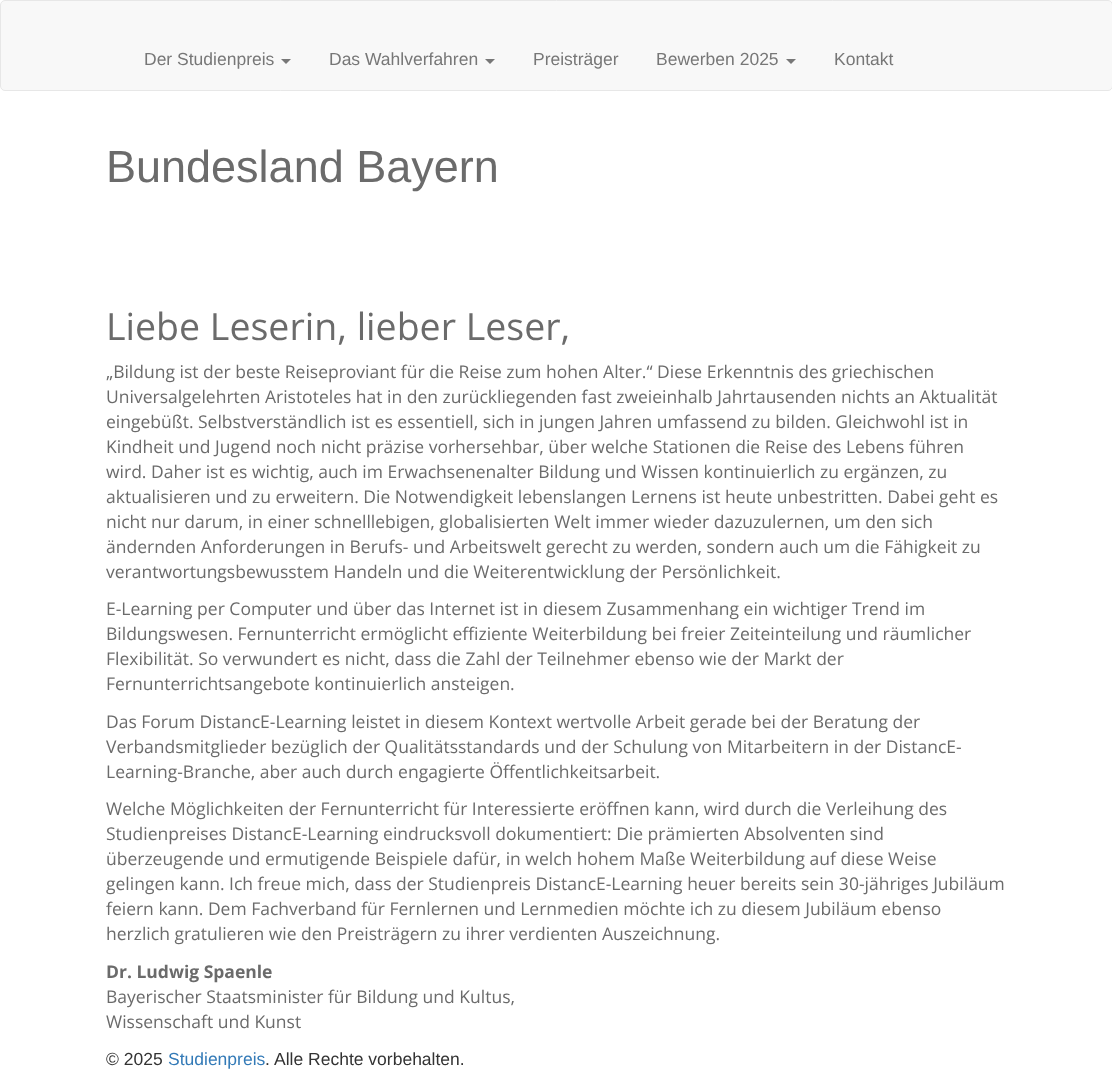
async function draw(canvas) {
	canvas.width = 1112;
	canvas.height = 1070;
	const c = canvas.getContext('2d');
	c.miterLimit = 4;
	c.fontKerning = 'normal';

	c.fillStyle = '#fff';
	c.fillRect(0, 0, 1112, 1070);
	c.fillStyle = '#f8f8f8';
	c.beginPath();
	c.roundRect(0.5, 0.5, 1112, 90, 4.5);
	c.fill();
	c.strokeStyle = '#e7e7e7';
	c.stroke();
	c.font = '17.5px Liberation Sans';
	c.fillStyle = '#777';
	c.fillText('Der Studienpreis', 144, 65);
	c.beginPath();
	c.moveTo(281, 59);
	c.lineTo(291, 59);
	c.lineTo(286, 64);
	c.closePath();
	c.fill();
	c.fillText('Das Wahlverfahren', 329, 65);
	c.beginPath();
	c.moveTo(485, 59);
	c.lineTo(495, 59);
	c.lineTo(490, 64);
	c.closePath();
	c.fill();
	c.fillText('Preisträger', 533, 65);
	c.fillText('Bewerben 2025', 656, 65);
	c.beginPath();
	c.moveTo(786, 59);
	c.lineTo(796, 59);
	c.lineTo(791, 64);
	c.closePath();
	c.fill();
	c.fillText('Kontakt', 834, 65);
	c.font = '45px Liberation Sans';
	c.fillStyle = '#6b6b6b';
	c.fillText('Bundesland Bayern', 106, 182);
	c.font = '37.5px Open Sans';
	c.fillText('Liebe Leserin, lieber Leser,', 106, 340);
	c.font = '17.5px Open Sans';
	for (const [text, x, y] of [
		['„Bildung ist der beste Reiseproviant für die Reise zum hohen Alter.“ Diese Erkenntnis des griechischen', 106, 378],
		['Universalgelehrten Aristoteles hat in den zurückliegenden fast zweieinhalb Jahrtausenden nichts an Aktualität', 106, 403],
		['eingebüßt. Selbstverständlich ist es essentiell, sich in jungen Jahren umfassend zu bilden. Gleichwohl ist in', 106, 428],
		['Kindheit und Jugend noch nicht präzise vorhersehbar, über welche Stationen die Reise des Lebens führen', 106, 453],
		['wird. Daher ist es wichtig, auch im Erwachsenenalter Bildung und Wissen kontinuierlich zu ergänzen, zu', 106, 478],
		['aktualisieren und zu erweitern. Die Notwendigkeit lebenslangen Lernens ist heute unbestritten. Dabei geht es', 106, 503],
		['nicht nur darum, in einer schnelllebigen, globalisierten Welt immer wieder dazuzulernen, um den sich', 106, 528],
		['ändernden Anforderungen in Berufs- und Arbeitswelt gerecht zu werden, sondern auch um die Fähigkeit zu', 106, 553],
		['verantwortungsbewusstem Handeln und die Weiterentwicklung der Persönlichkeit.', 106, 578],
		['E-Learning per Computer und über das Internet ist in diesem Zusammenhang ein wichtiger Trend im', 106, 615],
		['Bildungswesen. Fernunterricht ermöglicht effiziente Weiterbildung bei freier Zeiteinteilung und räumlicher', 106, 640],
		['Flexibilität. So verwundert es nicht, dass die Zahl der Teilnehmer ebenso wie der Markt der', 106, 665],
		['Fernunterrichtsangebote kontinuierlich ansteigen.', 106, 690],
		['Das Forum DistancE-Learning leistet in diesem Kontext wertvolle Arbeit gerade bei der Beratung der', 106, 728],
		['Verbandsmitglieder bezüglich der Qualitätsstandards und der Schulung von Mitarbeitern in der DistancE-', 106, 753],
		['Learning-Branche, aber auch durch engagierte Öffentlichkeitsarbeit.', 106, 778],
		['Welche Möglichkeiten der Fernunterricht für Interessierte eröffnen kann, wird durch die Verleihung des', 106, 815],
		['Studienpreises DistancE-Learning eindrucksvoll dokumentiert: Die prämierten Absolventen sind', 106, 840],
		['überzeugende und ermutigende Beispiele dafür, in welch hohem Maße Weiterbildung auf diese Weise', 106, 865],
		['gelingen kann. Ich freue mich, dass der Studienpreis DistancE-Learning heuer bereits sein 30-jähriges Jubiläum', 106, 890],
		['feiern kann. Dem Fachverband für Fernlernen und Lernmedien möchte ich zu diesem Jubiläum ebenso', 106, 915],
		['herzlich gratulieren wie den Preisträgern zu ihrer verdienten Auszeichnung.', 106, 940],
	]) {
		c.fillText(text, x, y);
	}
	c.font = 'bold 17.5px Open Sans';
	c.fillText('Dr. Ludwig Spaenle', 106, 978);
	c.font = '17.5px Open Sans';
	c.fillText('Bayerischer Staatsminister für Bildung und Kultus,', 106, 1003);
	c.fillText('Wissenschaft und Kunst', 106, 1028);
	c.font = '17.5px Liberation Sans';
	c.fillStyle = '#333';
	c.fillText('© 2025', 106, 1065);
	c.fillStyle = '#337ab7';
	c.fillText('Studienpreis', 168, 1065);
	c.fillStyle = '#333';
	c.fillText('.', 265, 1065);
	c.fillText('Alle Rechte vorbehalten.', 274, 1065);
}

draw(document.querySelector('canvas'));
